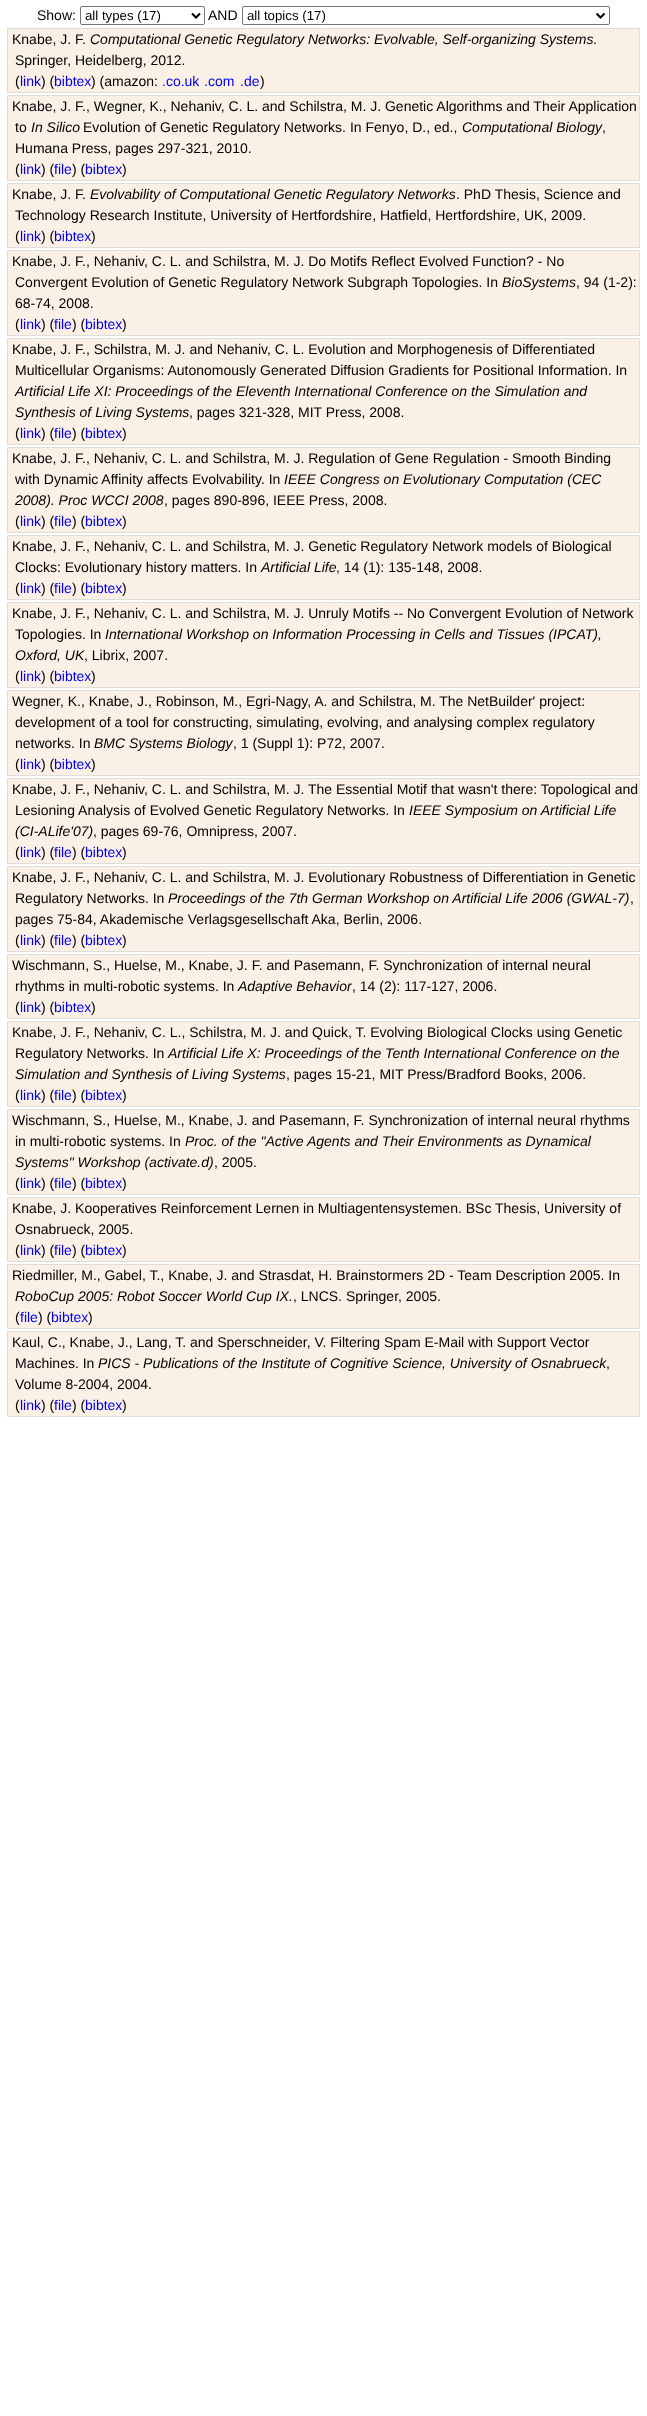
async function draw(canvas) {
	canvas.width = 647;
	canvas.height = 2416;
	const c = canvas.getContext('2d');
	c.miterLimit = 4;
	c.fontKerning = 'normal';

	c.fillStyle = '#fff';
	c.fillRect(0, 0, 647, 2416);
	c.font = '14px Liberation Sans';
	c.fillStyle = '#000';
	c.fillText('Show:', 37, 20);
	c.beginPath();
	c.roundRect(80.5, 6.5, 124, 18, 1.5);
	c.strokeStyle = '#767676';
	c.stroke();
	c.beginPath();
	c.moveTo(192, 13.5);
	c.lineTo(196, 17.5);
	c.lineTo(200, 13.5);
	c.strokeStyle = '#000';
	c.lineWidth = 2;
	c.stroke();
	c.font = '13.25px Liberation Sans';
	c.fillText('all types (17)', 85, 20);
	c.font = '14px Liberation Sans';
	c.fillText('AND', 208, 20);
	c.beginPath();
	c.roundRect(242.5, 6.5, 367, 18, 1.5);
	c.strokeStyle = '#767676';
	c.lineWidth = 1;
	c.stroke();
	c.beginPath();
	c.moveTo(596.5, 13.5);
	c.lineTo(600.5, 17.5);
	c.lineTo(604.5, 13.5);
	c.strokeStyle = '#000';
	c.lineWidth = 2;
	c.stroke();
	c.font = '13.25px Liberation Sans';
	c.fillText('all topics (17)', 247, 20);
	c.fillStyle = '#faf0e6';
	c.beginPath();
	c.rect(7.5, 28.5, 632, 64);
	c.fill();
	c.strokeStyle = '#ddd';
	c.lineWidth = 1;
	c.stroke();
	c.font = '14px Liberation Sans';
	c.fillStyle = '#000';
	c.fillText('Knabe, J. F.', 12, 44);
	c.font = 'italic 14px Liberation Sans';
	c.fillText('Computational Genetic Regulatory Networks: Evolvable, Self-organizing Systems', 90, 44);
	c.font = '14px Liberation Sans';
	for (const [text, x, y] of [
		['.', 593, 44],
		['Springer, Heidelberg, 2012.', 15, 65],
		['(', 15, 86],
	]) {
		c.fillText(text, x, y);
	}
	c.fillStyle = '#00e';
	c.fillText('link', 20, 86);
	c.fillStyle = '#000';
	c.fillText(') (', 41, 86);
	c.fillStyle = '#00e';
	c.fillText('bibtex', 54, 86);
	c.fillStyle = '#000';
	c.fillText(') (amazon:', 91, 86);
	c.fillStyle = '#00e';
	for (const [text, x, y] of [
		['.co.uk', 162, 86],
		['.com', 204, 86],
		['.de', 240, 86],
	]) {
		c.fillText(text, x, y);
	}
	c.fillStyle = '#000';
	c.fillText(')', 260, 86);
	c.fillStyle = '#faf0e6';
	c.beginPath();
	c.rect(7.5, 95.5, 632, 85);
	c.fill();
	c.stroke();
	c.fillStyle = '#000';
	c.fillText('Knabe, J. F., Wegner, K., Nehaniv, C. L. and Schilstra, M. J. Genetic Algorithms and Their Application', 12, 111);
	c.fillText('to', 15, 132);
	c.font = 'italic 14px Liberation Sans';
	c.fillText('In Silico', 31, 132);
	c.font = '14px Liberation Sans';
	c.fillText('Evolution of Genetic Regulatory Networks. In Fenyo, D., ed.,', 83, 132);
	c.font = 'italic 14px Liberation Sans';
	c.fillText('Computational Biology', 462, 132);
	c.font = '14px Liberation Sans';
	for (const [text, x, y] of [
		[',', 602, 132],
		['Humana Press, pages 297-321, 2010.', 15, 153],
		['(', 15, 174],
	]) {
		c.fillText(text, x, y);
	}
	c.fillStyle = '#00e';
	c.fillText('link', 20, 174);
	c.fillStyle = '#000';
	c.fillText(') (', 41, 174);
	c.fillStyle = '#00e';
	c.fillText('file', 54, 174);
	c.fillStyle = '#000';
	c.fillText(') (', 72, 174);
	c.fillStyle = '#00e';
	c.fillText('bibtex', 85, 174);
	c.fillStyle = '#000';
	c.fillText(')', 122, 174);
	c.fillStyle = '#faf0e6';
	c.beginPath();
	c.rect(7.5, 183.5, 632, 64);
	c.fill();
	c.stroke();
	c.fillStyle = '#000';
	c.fillText('Knabe, J. F.', 12, 199);
	c.font = 'italic 14px Liberation Sans';
	c.fillText('Evolvability of Computational Genetic Regulatory Networks', 90, 199);
	c.font = '14px Liberation Sans';
	for (const [text, x, y] of [
		['. PhD Thesis, Science and', 456, 199],
		['Technology Research Institute, University of Hertfordshire, Hatfield, Hertfordshire, UK, 2009.', 15, 220],
		['(', 15, 241],
	]) {
		c.fillText(text, x, y);
	}
	c.fillStyle = '#00e';
	c.fillText('link', 20, 241);
	c.fillStyle = '#000';
	c.fillText(') (', 41, 241);
	c.fillStyle = '#00e';
	c.fillText('bibtex', 54, 241);
	c.fillStyle = '#000';
	c.fillText(')', 91, 241);
	c.fillStyle = '#faf0e6';
	c.beginPath();
	c.rect(7.5, 250.5, 632, 85);
	c.fill();
	c.stroke();
	c.fillStyle = '#000';
	c.fillText('Knabe, J. F., Nehaniv, C. L. and Schilstra, M. J. Do Motifs Reflect Evolved Function? - No', 12, 266);
	c.fillText('Convergent Evolution of Genetic Regulatory Network Subgraph Topologies. In', 15, 287);
	c.font = 'italic 14px Liberation Sans';
	c.fillText('BioSystems', 502, 287);
	c.font = '14px Liberation Sans';
	for (const [text, x, y] of [
		[', 94 (1-2):', 576, 287],
		['68-74, 2008.', 15, 308],
		['(', 15, 329],
	]) {
		c.fillText(text, x, y);
	}
	c.fillStyle = '#00e';
	c.fillText('link', 20, 329);
	c.fillStyle = '#000';
	c.fillText(') (', 41, 329);
	c.fillStyle = '#00e';
	c.fillText('file', 54, 329);
	c.fillStyle = '#000';
	c.fillText(') (', 72, 329);
	c.fillStyle = '#00e';
	c.fillText('bibtex', 85, 329);
	c.fillStyle = '#000';
	c.fillText(')', 122, 329);
	c.fillStyle = '#faf0e6';
	c.beginPath();
	c.rect(7.5, 338.5, 632, 106);
	c.fill();
	c.stroke();
	c.fillStyle = '#000';
	c.fillText('Knabe, J. F., Schilstra, M. J. and Nehaniv, C. L. Evolution and Morphogenesis of Differentiated', 12, 354);
	c.fillText('Multicellular Organisms: Autonomously Generated Diffusion Gradients for Positional Information. In', 15, 375);
	c.font = 'italic 14px Liberation Sans';
	c.fillText('Artificial Life XI: Proceedings of the Eleventh International Conference on the Simulation and', 15, 396);
	c.fillText('Synthesis of Living Systems', 15, 417);
	c.font = '14px Liberation Sans';
	c.fillText(', pages 321-328, MIT Press, 2008.', 189, 417);
	c.fillText('(', 15, 438);
	c.fillStyle = '#00e';
	c.fillText('link', 20, 438);
	c.fillStyle = '#000';
	c.fillText(') (', 41, 438);
	c.fillStyle = '#00e';
	c.fillText('file', 54, 438);
	c.fillStyle = '#000';
	c.fillText(') (', 72, 438);
	c.fillStyle = '#00e';
	c.fillText('bibtex', 85, 438);
	c.fillStyle = '#000';
	c.fillText(')', 122, 438);
	c.fillStyle = '#faf0e6';
	c.beginPath();
	c.rect(7.5, 447.5, 632, 85);
	c.fill();
	c.stroke();
	c.fillStyle = '#000';
	c.fillText('Knabe, J. F., Nehaniv, C. L. and Schilstra, M. J. Regulation of Gene Regulation - Smooth Binding', 12, 463);
	c.fillText('with Dynamic Affinity affects Evolvability. In', 15, 484);
	c.font = 'italic 14px Liberation Sans';
	c.fillText('IEEE Congress on Evolutionary Computation (CEC', 284, 484);
	c.fillText('2008). Proc WCCI 2008', 15, 505);
	c.font = '14px Liberation Sans';
	c.fillText(', pages 890-896, IEEE Press, 2008.', 164, 505);
	c.fillText('(', 15, 526);
	c.fillStyle = '#00e';
	c.fillText('link', 20, 526);
	c.fillStyle = '#000';
	c.fillText(') (', 41, 526);
	c.fillStyle = '#00e';
	c.fillText('file', 54, 526);
	c.fillStyle = '#000';
	c.fillText(') (', 72, 526);
	c.fillStyle = '#00e';
	c.fillText('bibtex', 85, 526);
	c.fillStyle = '#000';
	c.fillText(')', 122, 526);
	c.fillStyle = '#faf0e6';
	c.beginPath();
	c.rect(7.5, 535.5, 632, 64);
	c.fill();
	c.stroke();
	c.fillStyle = '#000';
	c.fillText('Knabe, J. F., Nehaniv, C. L. and Schilstra, M. J. Genetic Regulatory Network models of Biological', 12, 551);
	c.fillText('Clocks: Evolutionary history matters. In', 15, 572);
	c.font = 'italic 14px Liberation Sans';
	c.fillText('Artificial Life', 261, 572);
	c.font = '14px Liberation Sans';
	c.fillText(', 14 (1): 135-148, 2008.', 336, 572);
	c.fillText('(', 15, 593);
	c.fillStyle = '#00e';
	c.fillText('link', 20, 593);
	c.fillStyle = '#000';
	c.fillText(') (', 41, 593);
	c.fillStyle = '#00e';
	c.fillText('file', 54, 593);
	c.fillStyle = '#000';
	c.fillText(') (', 72, 593);
	c.fillStyle = '#00e';
	c.fillText('bibtex', 85, 593);
	c.fillStyle = '#000';
	c.fillText(')', 122, 593);
	c.fillStyle = '#faf0e6';
	c.beginPath();
	c.rect(7.5, 602.5, 632, 85);
	c.fill();
	c.stroke();
	c.fillStyle = '#000';
	c.fillText('Knabe, J. F., Nehaniv, C. L. and Schilstra, M. J. Unruly Motifs -- No Convergent Evolution of Network', 12, 618);
	c.fillText('Topologies. In', 15, 639);
	c.font = 'italic 14px Liberation Sans';
	c.fillText('International Workshop on Information Processing in Cells and Tissues (IPCAT),', 105, 639);
	c.fillText('Oxford, UK', 15, 660);
	c.font = '14px Liberation Sans';
	c.fillText(', Librix, 2007.', 84, 660);
	c.fillText('(', 15, 681);
	c.fillStyle = '#00e';
	c.fillText('link', 20, 681);
	c.fillStyle = '#000';
	c.fillText(') (', 41, 681);
	c.fillStyle = '#00e';
	c.fillText('bibtex', 54, 681);
	c.fillStyle = '#000';
	c.fillText(')', 91, 681);
	c.fillStyle = '#faf0e6';
	c.beginPath();
	c.rect(7.5, 690.5, 632, 85);
	c.fill();
	c.stroke();
	c.fillStyle = '#000';
	for (const [text, x, y] of [
		['Wegner, K., Knabe, J., Robinson, M., Egri-Nagy, A. and Schilstra, M. The NetBuilder\' project:', 12, 706],
		['development of a tool for constructing, simulating, evolving, and analysing complex regulatory', 15, 727],
		['networks. In', 15, 748],
	]) {
		c.fillText(text, x, y);
	}
	c.font = 'italic 14px Liberation Sans';
	c.fillText('BMC Systems Biology', 94, 748);
	c.font = '14px Liberation Sans';
	c.fillText(', 1 (Suppl 1): P72, 2007.', 233, 748);
	c.fillText('(', 15, 769);
	c.fillStyle = '#00e';
	c.fillText('link', 20, 769);
	c.fillStyle = '#000';
	c.fillText(') (', 41, 769);
	c.fillStyle = '#00e';
	c.fillText('bibtex', 54, 769);
	c.fillStyle = '#000';
	c.fillText(')', 91, 769);
	c.fillStyle = '#faf0e6';
	c.beginPath();
	c.rect(7.5, 778.5, 632, 85);
	c.fill();
	c.stroke();
	c.fillStyle = '#000';
	c.fillText('Knabe, J. F., Nehaniv, C. L. and Schilstra, M. J. The Essential Motif that wasn\'t there: Topological and', 12, 794);
	c.fillText('Lesioning Analysis of Evolved Genetic Regulatory Networks. In', 15, 815);
	c.font = 'italic 14px Liberation Sans';
	c.fillText('IEEE Symposium on Artificial Life', 409, 815);
	c.fillText('(CI-ALife\'07)', 15, 836);
	c.font = '14px Liberation Sans';
	c.fillText(', pages 69-76, Omnipress, 2007.', 93, 836);
	c.fillText('(', 15, 857);
	c.fillStyle = '#00e';
	c.fillText('link', 20, 857);
	c.fillStyle = '#000';
	c.fillText(') (', 41, 857);
	c.fillStyle = '#00e';
	c.fillText('file', 54, 857);
	c.fillStyle = '#000';
	c.fillText(') (', 72, 857);
	c.fillStyle = '#00e';
	c.fillText('bibtex', 85, 857);
	c.fillStyle = '#000';
	c.fillText(')', 122, 857);
	c.fillStyle = '#faf0e6';
	c.beginPath();
	c.rect(7.5, 866.5, 632, 85);
	c.fill();
	c.stroke();
	c.fillStyle = '#000';
	c.fillText('Knabe, J. F., Nehaniv, C. L. and Schilstra, M. J. Evolutionary Robustness of Differentiation in Genetic', 12, 882);
	c.fillText('Regulatory Networks. In', 15, 903);
	c.font = 'italic 14px Liberation Sans';
	c.fillText('Proceedings of the 7th German Workshop on Artificial Life 2006 (GWAL-7)', 168, 903);
	c.font = '14px Liberation Sans';
	for (const [text, x, y] of [
		[',', 630, 903],
		['pages 75-84, Akademische Verlagsgesellschaft Aka, Berlin, 2006.', 15, 924],
		['(', 15, 945],
	]) {
		c.fillText(text, x, y);
	}
	c.fillStyle = '#00e';
	c.fillText('link', 20, 945);
	c.fillStyle = '#000';
	c.fillText(') (', 41, 945);
	c.fillStyle = '#00e';
	c.fillText('file', 54, 945);
	c.fillStyle = '#000';
	c.fillText(') (', 72, 945);
	c.fillStyle = '#00e';
	c.fillText('bibtex', 85, 945);
	c.fillStyle = '#000';
	c.fillText(')', 122, 945);
	c.fillStyle = '#faf0e6';
	c.beginPath();
	c.rect(7.5, 954.5, 632, 64);
	c.fill();
	c.stroke();
	c.fillStyle = '#000';
	c.fillText('Wischmann, S., Huelse, M., Knabe, J. F. and Pasemann, F. Synchronization of internal neural', 12, 970);
	c.fillText('rhythms in multi-robotic systems. In', 15, 991);
	c.font = 'italic 14px Liberation Sans';
	c.fillText('Adaptive Behavior', 238, 991);
	c.font = '14px Liberation Sans';
	c.fillText(', 14 (2): 117-127, 2006.', 352, 991);
	c.fillText('(', 15, 1012);
	c.fillStyle = '#00e';
	c.fillText('link', 20, 1012);
	c.fillStyle = '#000';
	c.fillText(') (', 41, 1012);
	c.fillStyle = '#00e';
	c.fillText('bibtex', 54, 1012);
	c.fillStyle = '#000';
	c.fillText(')', 91, 1012);
	c.fillStyle = '#faf0e6';
	c.beginPath();
	c.rect(7.5, 1021.5, 632, 85);
	c.fill();
	c.stroke();
	c.fillStyle = '#000';
	c.fillText('Knabe, J. F., Nehaniv, C. L., Schilstra, M. J. and Quick, T. Evolving Biological Clocks using Genetic', 12, 1037);
	c.fillText('Regulatory Networks. In', 15, 1058);
	c.font = 'italic 14px Liberation Sans';
	c.fillText('Artificial Life X: Proceedings of the Tenth International Conference on the', 168, 1058);
	c.fillText('Simulation and Synthesis of Living Systems', 15, 1079);
	c.font = '14px Liberation Sans';
	c.fillText(', pages 15-21, MIT Press/Bradford Books, 2006.', 286, 1079);
	c.fillText('(', 15, 1100);
	c.fillStyle = '#00e';
	c.fillText('link', 20, 1100);
	c.fillStyle = '#000';
	c.fillText(') (', 41, 1100);
	c.fillStyle = '#00e';
	c.fillText('file', 54, 1100);
	c.fillStyle = '#000';
	c.fillText(') (', 72, 1100);
	c.fillStyle = '#00e';
	c.fillText('bibtex', 85, 1100);
	c.fillStyle = '#000';
	c.fillText(')', 122, 1100);
	c.fillStyle = '#faf0e6';
	c.beginPath();
	c.rect(7.5, 1109.5, 632, 85);
	c.fill();
	c.stroke();
	c.fillStyle = '#000';
	c.fillText('Wischmann, S., Huelse, M., Knabe, J. and Pasemann, F. Synchronization of internal neural rhythms', 12, 1125);
	c.fillText('in multi-robotic systems. In', 15, 1146);
	c.font = 'italic 14px Liberation Sans';
	c.fillText('Proc. of the "Active Agents and Their Environments as Dynamical', 185, 1146);
	c.fillText('Systems" Workshop (activate.d)', 15, 1167);
	c.font = '14px Liberation Sans';
	c.fillText(', 2005.', 214, 1167);
	c.fillText('(', 15, 1188);
	c.fillStyle = '#00e';
	c.fillText('link', 20, 1188);
	c.fillStyle = '#000';
	c.fillText(') (', 41, 1188);
	c.fillStyle = '#00e';
	c.fillText('file', 54, 1188);
	c.fillStyle = '#000';
	c.fillText(') (', 72, 1188);
	c.fillStyle = '#00e';
	c.fillText('bibtex', 85, 1188);
	c.fillStyle = '#000';
	c.fillText(')', 122, 1188);
	c.fillStyle = '#faf0e6';
	c.beginPath();
	c.rect(7.5, 1197.5, 632, 64);
	c.fill();
	c.stroke();
	c.fillStyle = '#000';
	for (const [text, x, y] of [
		['Knabe, J. Kooperatives Reinforcement Lernen in Multiagentensystemen. BSc Thesis, University of', 12, 1213],
		['Osnabrueck, 2005.', 15, 1234],
		['(', 15, 1255],
	]) {
		c.fillText(text, x, y);
	}
	c.fillStyle = '#00e';
	c.fillText('link', 20, 1255);
	c.fillStyle = '#000';
	c.fillText(') (', 41, 1255);
	c.fillStyle = '#00e';
	c.fillText('file', 54, 1255);
	c.fillStyle = '#000';
	c.fillText(') (', 72, 1255);
	c.fillStyle = '#00e';
	c.fillText('bibtex', 85, 1255);
	c.fillStyle = '#000';
	c.fillText(')', 122, 1255);
	c.fillStyle = '#faf0e6';
	c.beginPath();
	c.rect(7.5, 1264.5, 632, 64);
	c.fill();
	c.stroke();
	c.fillStyle = '#000';
	c.fillText('Riedmiller, M., Gabel, T., Knabe, J. and Strasdat, H. Brainstormers 2D - Team Description 2005. In', 12, 1280);
	c.font = 'italic 14px Liberation Sans';
	c.fillText('RoboCup 2005: Robot Soccer World Cup IX.', 15, 1301);
	c.font = '14px Liberation Sans';
	c.fillText(', LNCS. Springer, 2005.', 293, 1301);
	c.fillText('(', 15, 1322);
	c.fillStyle = '#00e';
	c.fillText('file', 20, 1322);
	c.fillStyle = '#000';
	c.fillText(') (', 38, 1322);
	c.fillStyle = '#00e';
	c.fillText('bibtex', 51, 1322);
	c.fillStyle = '#000';
	c.fillText(')', 88, 1322);
	c.fillStyle = '#faf0e6';
	c.beginPath();
	c.rect(7.5, 1331.5, 632, 85);
	c.fill();
	c.stroke();
	c.fillStyle = '#000';
	c.fillText('Kaul, C., Knabe, J., Lang, T. and Sperschneider, V. Filtering Spam E-Mail with Support Vector', 12, 1347);
	c.fillText('Machines. In', 15, 1368);
	c.font = 'italic 14px Liberation Sans';
	c.fillText('PICS - Publications of the Institute of Cognitive Science, University of Osnabrueck', 98, 1368);
	c.font = '14px Liberation Sans';
	for (const [text, x, y] of [
		[',', 606, 1368],
		['Volume 8-2004, 2004.', 15, 1389],
		['(', 15, 1410],
	]) {
		c.fillText(text, x, y);
	}
	c.fillStyle = '#00e';
	c.fillText('link', 20, 1410);
	c.fillStyle = '#000';
	c.fillText(') (', 41, 1410);
	c.fillStyle = '#00e';
	c.fillText('file', 54, 1410);
	c.fillStyle = '#000';
	c.fillText(') (', 72, 1410);
	c.fillStyle = '#00e';
	c.fillText('bibtex', 85, 1410);
	c.fillStyle = '#000';
	c.fillText(')', 122, 1410);
}

draw(document.querySelector('canvas'));
